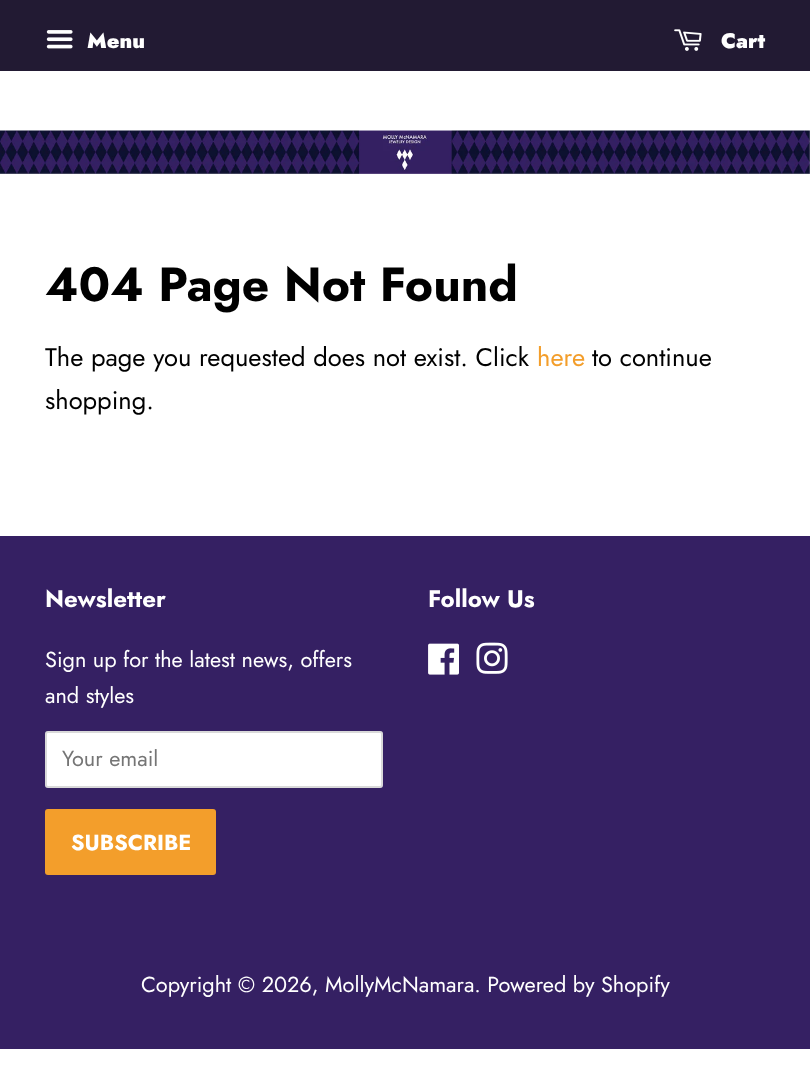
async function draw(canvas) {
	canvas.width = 810;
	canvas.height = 1092;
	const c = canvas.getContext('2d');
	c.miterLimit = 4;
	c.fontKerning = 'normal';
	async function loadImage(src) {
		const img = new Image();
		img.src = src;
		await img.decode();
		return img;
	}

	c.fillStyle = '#fff';
	c.fillRect(0, 0, 810, 1092);
	c.fillStyle = '#221a33';
	c.fillRect(0, 0, 810, 71);
	c.drawImage(await loadImage('img1.png'), 46, 30, 27, 19);
	c.font = '900 21px Jost';
	c.fillStyle = '#fff';
	c.fillText('Menu', 87, 48);
	c.drawImage(await loadImage('img2.png'), 674, 29, 28, 22);
	c.fillText('Cart', 721, 48);
	c.drawImage(await loadImage('img3.png'), 0, 130, 810, 44);
	c.font = 'bold 48px Jost';
	c.fillStyle = '#000';
	c.fillText('404 Page Not Found', 45, 301);
	c.font = '25.5px Jost';
	c.fillText('The page you requested does not exist. Click', 45, 366);
	c.fillStyle = '#f39e2b';
	c.fillText('here', 537, 366);
	c.fillStyle = '#000';
	c.fillText('to continue', 592, 366);
	c.fillText('shopping.', 45, 409);
	c.fillStyle = '#352063';
	c.fillRect(0, 536, 810, 513);
	c.font = 'bold 24px Jost';
	c.fillStyle = '#fff';
	c.fillText('Newsletter', 45, 607);
	c.font = '21.7px Jost';
	c.fillText('Sign up for the latest news, offers', 45, 667);
	c.fillText('and styles', 45, 703);
	c.beginPath();
	c.roundRect(45, 731, 338, 57, 3);
	c.fill();
	c.beginPath();
	c.roundRect(46, 732, 336, 55, 2);
	c.strokeStyle = '#00000026';
	c.lineWidth = 2;
	c.stroke();
	c.fillStyle = '#757575';
	c.fillText('Your email', 62, 766);
	c.fillStyle = '#f39e2b';
	c.beginPath();
	c.roundRect(45, 809, 171, 66, 3);
	c.fill();
	c.font = 'bold 21.7px Jost';
	c.fillStyle = '#fff';
	c.fillText('SUBSCRIBE', 71, 850);
	c.font = 'bold 24px Jost';
	c.fillText('Follow Us', 428, 607);
	c.drawImage(await loadImage('img4.png'), 428, 643, 31, 32);
	c.drawImage(await loadImage('img5.png'), 476, 642, 32, 32);
	c.font = '21.7px Jost';
	c.fillText('Copyright © 2026, MollyMcNamara. Powered by Shopify', 141, 992);
}

draw(document.querySelector('canvas'));
